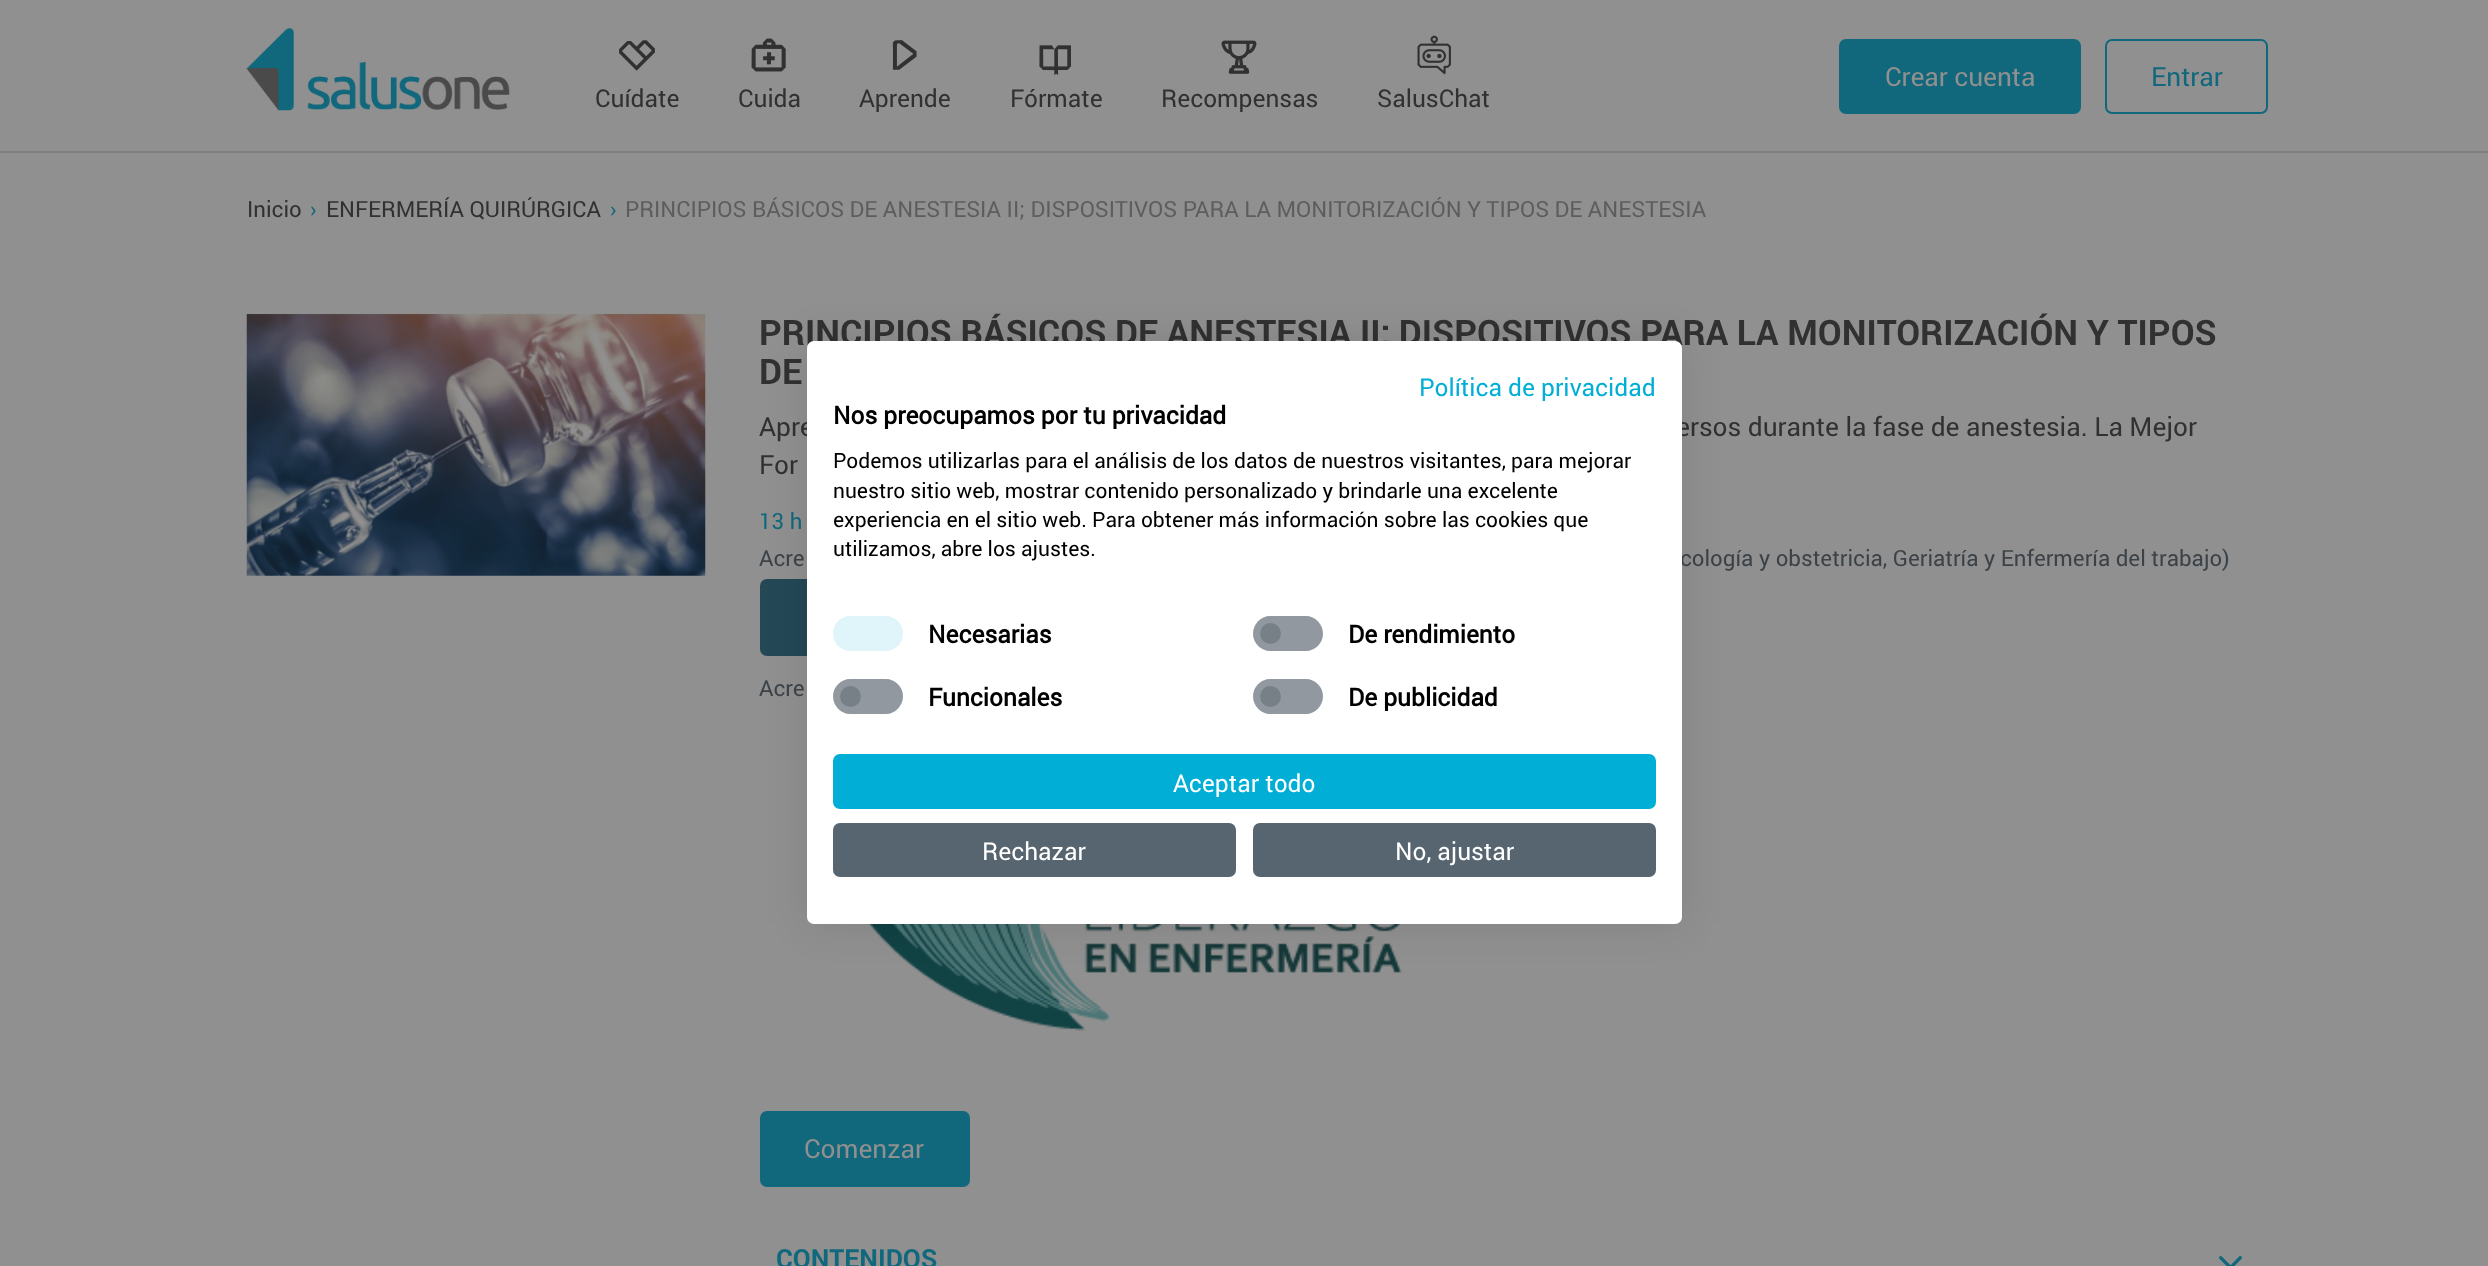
async function draw(canvas) {
	canvas.width = 2488;
	canvas.height = 1266;
	const c = canvas.getContext('2d');
	c.miterLimit = 4;
	c.fontKerning = 'normal';
	async function loadImage(src) {
		const img = new Image();
		img.src = src;
		await img.decode();
		return img;
	}

	c.fillStyle = '#919090';
	c.fillRect(0, 0, 2488, 1266);
	c.fillStyle = '#807f7f';
	c.fillRect(0, 151, 2488, 2);
	c.drawImage(await loadImage('img1.png'), 246, 28, 264, 83);
	c.fillStyle = '#11687c';
	c.beginPath();
	c.roundRect(1840, 40, 240, 73, 6);
	c.fill();
	c.strokeStyle = '#11687c';
	c.lineWidth = 2;
	c.stroke();
	c.font = '26.25px roboto';
	c.fillStyle = '#919090';
	c.fillText('Crear cuenta', 1885, 86);
	c.beginPath();
	c.roundRect(2106, 40, 161, 73, 6);
	c.stroke();
	c.fillStyle = '#11687c';
	c.fillText('Entrar', 2151, 86);
	c.drawImage(await loadImage('img2.png'), 619, 40, 36, 31);
	c.font = '24.5px roboto';
	c.fillStyle = '#323131';
	c.fillText('Cuídate', 595, 107);
	c.drawImage(await loadImage('img3.png'), 751, 38, 35, 34);
	c.fillText('Cuida', 738, 107);
	c.drawImage(await loadImage('img4.png'), 892, 40, 25, 30);
	c.fillText('Aprende', 859, 107);
	c.drawImage(await loadImage('img5.png'), 1039, 45, 32, 30);
	c.fillText('Fórmate', 1010, 107);
	c.drawImage(await loadImage('img6.png'), 1221, 40, 36, 34);
	c.fillText('Recompensas', 1161, 107);
	c.drawImage(await loadImage('img7.png'), 1417, 35, 34, 40);
	c.fillText('SalusChat', 1377, 107);
	c.font = '22.3px roboto';
	c.fillText('Inicio', 247, 217);
	c.fillStyle = '#11687c';
	c.fillText('›', 310, 217);
	c.fillStyle = '#323131';
	c.fillText('ENFERMERÍA QUIRÚRGICA', 326, 217);
	c.fillStyle = '#11687c';
	c.fillText('›', 610, 217);
	c.fillStyle = '#5e5d5d';
	c.fillText('PRINCIPIOS BÁSICOS DE ANESTESIA II; DISPOSITIVOS PARA LA MONITORIZACIÓN Y TIPOS DE ANESTESIA', 625, 217);
	c.drawImage(await loadImage('img8.png'), 246, 313, 460, 263);
	c.font = 'bold 35px roboto';
	c.fillStyle = '#323131';
	c.fillText('PRINCIPIOS BÁSICOS DE ANESTESIA II; DISPOSITIVOS PARA LA MONITORIZACIÓN Y TIPOS', 759, 345);
	c.fillText('DE', 759, 384);
	c.font = '26.25px roboto';
	for (const [text, x, y] of [
		['Apre', 759, 436],
		['ersos durante la fase de anestesia. La Mejor', 1676, 436],
		['For', 759, 474],
	]) {
		c.fillText(text, x, y);
	}
	c.font = '22.3px roboto';
	c.fillStyle = '#11687c';
	c.fillText('13 h', 759, 529);
	c.fillStyle = '#3c4348';
	c.fillText('Acre', 759, 566);
	c.fillText('cología y obstetricia, Geriatría y Enfermería del trabajo)', 1680, 566);
	c.fillStyle = '#244856';
	c.beginPath();
	c.roundRect(761, 580, 309, 75, 6);
	c.fill();
	c.strokeStyle = '#244856';
	c.stroke();
	c.fillStyle = '#3c4348';
	c.fillText('Acre', 759, 696);
	c.drawImage(await loadImage('img9.png'), 868, 924, 534, 107);
	c.fillStyle = '#11687c';
	c.beginPath();
	c.roundRect(761, 1112, 208, 74, 6);
	c.fill();
	c.strokeStyle = '#11687c';
	c.stroke();
	c.font = '26.25px roboto';
	c.fillStyle = '#919090';
	c.fillText('Comenzar', 804, 1158);
	c.font = 'bold 26.25px roboto';
	c.fillStyle = '#11687c';
	c.fillText('CONTENIDOS', 776, 1268);
	c.drawImage(await loadImage('img10.png'), 2219, 1256, 23, 10);
	c.fillStyle = '#0000001a';
	c.filter = 'blur(21px)';
	c.beginPath();
	c.roundRect(807, 341, 875, 583, 7);
	c.fill();
	c.filter = 'none';
	c.fillStyle = '#fff';
	c.beginPath();
	c.roundRect(807, 341, 875, 583, 7);
	c.fill();
	c.font = '24.5px roboto';
	c.fillStyle = '#00aed6';
	c.fillText('Política de privacidad', 1419, 396);
	c.font = 'bold 24.5px "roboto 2"';
	c.fillStyle = '#000';
	c.fillText('Nos preocupamos por tu privacidad', 833, 424);
	c.font = '21px roboto';
	for (const [text, x, y] of [
		['Podemos utilizarlas para el análisis de los datos de nuestros visitantes, para mejorar', 833, 468],
		['nuestro sitio web, mostrar contenido personalizado y brindarle una excelente', 833, 498],
		['experiencia en el sitio web. Para obtener más información sobre las cookies que', 833, 527],
		['utilizamos, abre los ajustes.', 833, 556],
	]) {
		c.fillText(text, x, y);
	}
	c.fillStyle = '#f2fbfd';
	c.beginPath();
	c.roundRect(833, 616, 70, 35, 17.5);
	c.fill();
	c.fillStyle = '#dff5fa';
	c.beginPath();
	c.moveTo(850, 616);
	c.lineTo(886, 616);
	c.bezierCurveTo(895, 616, 903, 624, 903, 634);
	c.bezierCurveTo(903, 643, 895, 651, 886, 651);
	c.lineTo(850, 651);
	c.bezierCurveTo(841, 651, 833, 643, 833, 634);
	c.bezierCurveTo(833, 624, 841, 616, 850, 616);
	c.closePath();
	c.fill();
	c.font = 'bold 24.5px "roboto 2"';
	c.fillStyle = '#000';
	c.fillText('Necesarias', 928, 643);
	c.fillStyle = '#e9ecef';
	c.beginPath();
	c.roundRect(1253, 616, 70, 35, 17.5);
	c.fill();
	c.fillStyle = '#92999f';
	c.beginPath();
	c.arc(1270.5, 633.5, 10.5, 0, 2 * Math.PI);
	c.fill();
	c.fillStyle = '#6c757db3';
	c.beginPath();
	c.moveTo(1270, 616);
	c.lineTo(1306, 616);
	c.bezierCurveTo(1315, 616, 1323, 624, 1323, 634);
	c.bezierCurveTo(1323, 643, 1315, 651, 1306, 651);
	c.lineTo(1270, 651);
	c.bezierCurveTo(1261, 651, 1253, 643, 1253, 634);
	c.bezierCurveTo(1253, 624, 1261, 616, 1270, 616);
	c.closePath();
	c.fill();
	c.fillStyle = '#000';
	c.fillText('De rendimiento', 1348, 643);
	c.fillStyle = '#e9ecef';
	c.beginPath();
	c.roundRect(833, 679, 70, 35, 17.5);
	c.fill();
	c.fillStyle = '#92999f';
	c.beginPath();
	c.arc(850.5, 696.5, 10.5, 0, 2 * Math.PI);
	c.fill();
	c.fillStyle = '#6c757db3';
	c.beginPath();
	c.moveTo(850, 679);
	c.lineTo(886, 679);
	c.bezierCurveTo(895, 679, 903, 687, 903, 696);
	c.bezierCurveTo(903, 706, 895, 714, 886, 714);
	c.lineTo(850, 714);
	c.bezierCurveTo(841, 714, 833, 706, 833, 696);
	c.bezierCurveTo(833, 687, 841, 679, 850, 679);
	c.closePath();
	c.fill();
	c.fillStyle = '#000';
	c.fillText('Funcionales', 928, 706);
	c.fillStyle = '#e9ecef';
	c.beginPath();
	c.roundRect(1253, 679, 70, 35, 17.5);
	c.fill();
	c.fillStyle = '#92999f';
	c.beginPath();
	c.arc(1270.5, 696.5, 10.5, 0, 2 * Math.PI);
	c.fill();
	c.fillStyle = '#6c757db3';
	c.beginPath();
	c.moveTo(1270, 679);
	c.lineTo(1306, 679);
	c.bezierCurveTo(1315, 679, 1323, 687, 1323, 696);
	c.bezierCurveTo(1323, 706, 1315, 714, 1306, 714);
	c.lineTo(1270, 714);
	c.bezierCurveTo(1261, 714, 1253, 706, 1253, 696);
	c.bezierCurveTo(1253, 687, 1261, 679, 1270, 679);
	c.closePath();
	c.fill();
	c.fillStyle = '#000';
	c.fillText('De publicidad', 1348, 706);
	c.fillStyle = '#00aed6';
	c.beginPath();
	c.roundRect(834, 755, 821, 53, 6);
	c.fill();
	c.strokeStyle = '#00aed6';
	c.stroke();
	c.font = '24.5px roboto';
	c.fillStyle = '#fff';
	c.fillText('Aceptar todo', 1173, 792);
	c.fillStyle = '#56656f';
	c.beginPath();
	c.roundRect(834, 824, 401, 52, 6);
	c.fill();
	c.strokeStyle = '#56656f';
	c.stroke();
	c.fillStyle = '#fff';
	c.fillText('Rechazar', 982, 860);
	c.fillStyle = '#56656f';
	c.beginPath();
	c.roundRect(1254, 824, 401, 52, 6);
	c.fill();
	c.stroke();
	c.fillStyle = '#fff';
	c.fillText('No, ajustar', 1395, 860);
}

draw(document.querySelector('canvas'));
